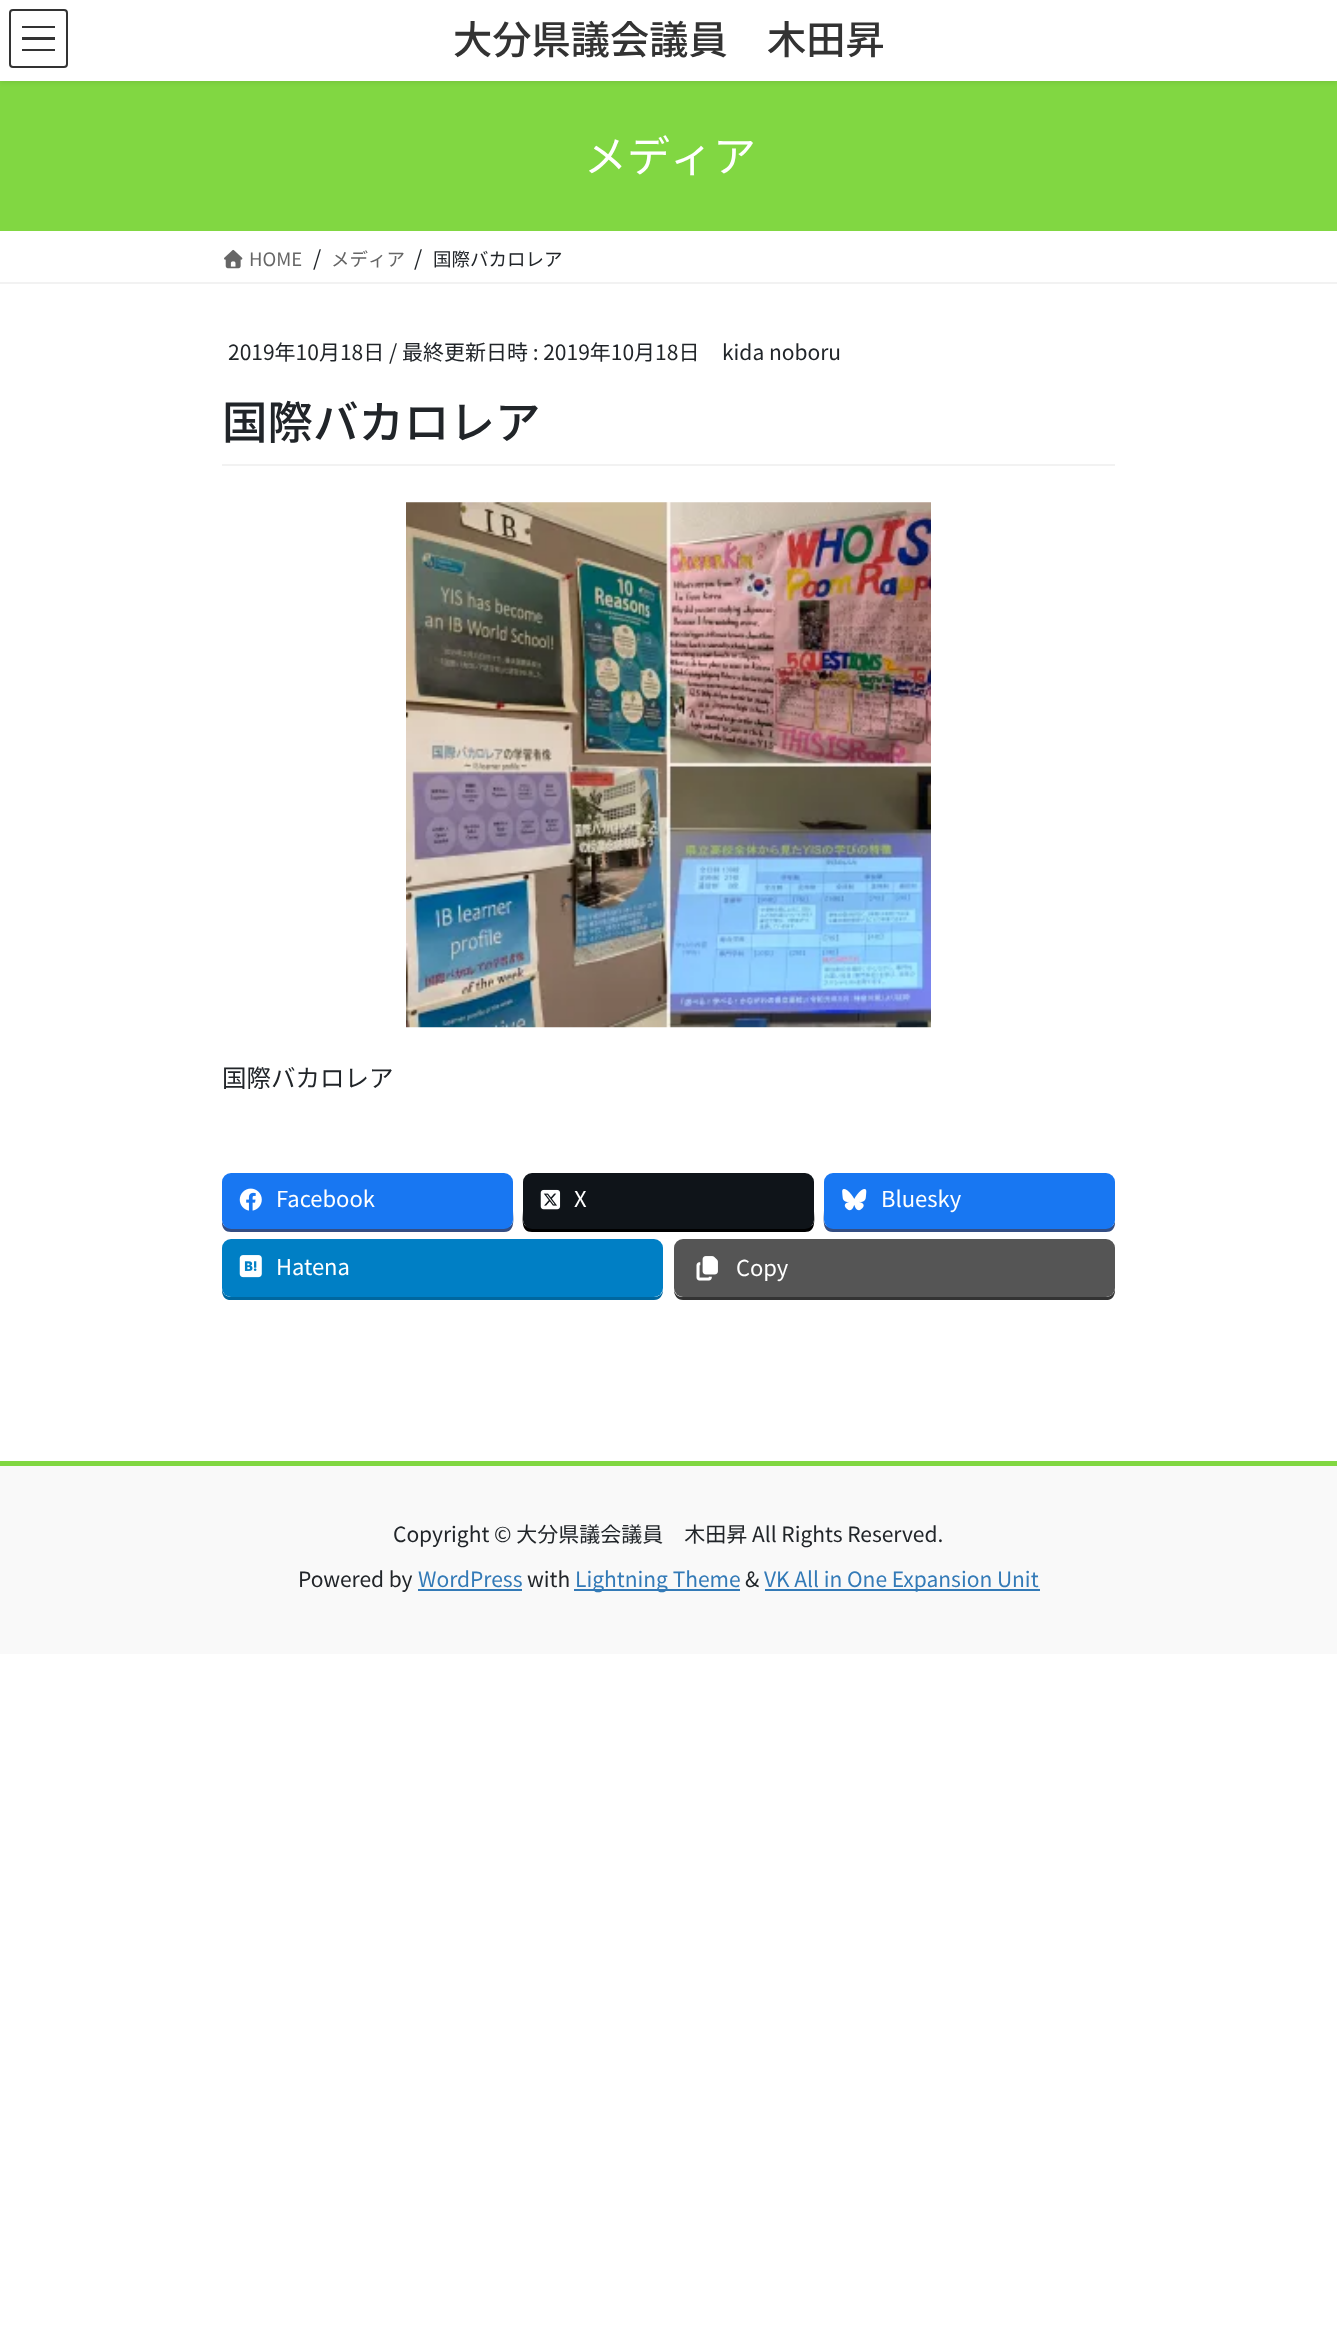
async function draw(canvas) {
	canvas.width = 1337;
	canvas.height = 2335;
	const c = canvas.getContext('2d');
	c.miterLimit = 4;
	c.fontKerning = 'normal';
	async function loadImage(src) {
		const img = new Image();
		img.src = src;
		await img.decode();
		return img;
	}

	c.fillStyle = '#fff';
	c.fillRect(0, 0, 1337, 2335);
	c.fillStyle = '#81d742';
	c.fillRect(0, 81, 1337, 150);
	c.fillStyle = '#0000001a';
	c.filter = 'blur(2.5px)';
	c.beginPath();
	c.rect(0, 2, 1337, 80);
	c.fill();
	c.filter = 'none';
	for (const [x, y, w, h, color] of [
		[0, 0, 1337, 81, '#fff'],
		[22, 26, 33, 2, '#333'],
		[22, 37, 33, 3, '#333'],
		[22, 49, 33, 2, '#333'],
	]) {
		c.fillStyle = color;
		c.fillRect(x, y, w, h);
	}
	c.beginPath();
	c.roundRect(10, 10, 57, 57, 3);
	c.strokeStyle = '#333';
	c.lineWidth = 2;
	c.stroke();
	c.font = '500 39.25px Noto Sans JP';
	c.fillText('大分県議会議員　木田昇', 453, 54);
	c.font = '43px Noto Sans JP';
	c.fillStyle = '#fff';
	c.fillText('メディア', 584, 172);
	c.fillStyle = '#f2f2f2';
	c.fillRect(0, 282, 1337, 2);
	c.drawImage(await loadImage('img1.png'), 224, 249, 19, 20);
	c.font = '18.5px Noto Sans JP';
	c.fillStyle = '#666';
	c.fillText('HOME', 249, 266);
	c.font = '21px Noto Sans JP';
	c.fillStyle = '#212529';
	c.fillText('/', 313, 266);
	c.font = '18.5px Noto Sans JP';
	c.fillStyle = '#666';
	c.fillText('メディア', 331, 266);
	c.font = '21px Noto Sans JP';
	c.fillStyle = '#212529';
	c.fillText('/', 414, 266);
	c.font = '18.5px Noto Sans JP';
	c.fillText('国際バカロレア', 433, 266);
	c.fillStyle = '#f2f2f2';
	c.fillRect(222, 464, 893, 2);
	c.font = '21px Noto Sans JP';
	c.fillStyle = '#212529';
	for (const [text, x, y] of [
		['2019年10月18日', 228, 360],
		['/ 最終更新日時 : 2019年10月18日', 389, 360],
		['kida noboru', 722, 360],
	]) {
		c.fillText(text, x, y);
	}
	c.font = '500 45.5px Noto Sans JP';
	c.fillText('国際バカロレア', 222, 439);
	c.drawImage(await loadImage('img2.png'), 406, 502, 525, 526);
	c.font = '24.5px Noto Sans JP';
	c.fillText('国際バカロレア', 222, 1087);
	c.save();
	c.beginPath();
	c.rect(222, 1173, 893, 129);
	c.clip();
	c.fillStyle = '#344e84';
	c.beginPath();
	c.moveTo(222, 1183);
	c.lineTo(222, 1210);
	c.bezierCurveTo(222, 1218, 219, 1232, 231, 1232);
	c.lineTo(504, 1232);
	c.bezierCurveTo(516, 1232, 513, 1218, 513, 1210);
	c.lineTo(513, 1183);
	c.lineTo(513, 1220);
	c.bezierCurveTo(513, 1225, 509, 1228, 504, 1228);
	c.lineTo(231, 1228);
	c.bezierCurveTo(226, 1228, 222, 1225, 222, 1220);
	c.closePath();
	c.fill();
	c.restore();
	c.fillStyle = '#1877f2';
	c.beginPath();
	c.roundRect(222, 1173, 291, 56, 9);
	c.fill();
	c.drawImage(await loadImage('img3.png'), 239, 1188, 23, 23);
	c.font = '22px Noto Sans JP';
	c.fillStyle = '#fff';
	c.fillText('Facebook', 276, 1207);
	c.fillStyle = '#000';
	c.beginPath();
	c.moveTo(523, 1183);
	c.lineTo(523, 1210);
	c.bezierCurveTo(523, 1218, 520, 1232, 532, 1232);
	c.lineTo(805, 1232);
	c.bezierCurveTo(817, 1232, 814, 1218, 814, 1210);
	c.lineTo(814, 1183);
	c.lineTo(814, 1220);
	c.bezierCurveTo(814, 1225, 810, 1228, 805, 1228);
	c.lineTo(532, 1228);
	c.bezierCurveTo(527, 1228, 523, 1225, 523, 1220);
	c.closePath();
	c.fill();
	c.fillStyle = '#0f1419';
	c.beginPath();
	c.roundRect(523, 1173, 291, 56, 9);
	c.fill();
	c.drawImage(await loadImage('img4.png'), 540, 1189, 21, 21);
	c.fillStyle = '#fff';
	c.fillText('X', 574, 1207);
	c.save();
	c.beginPath();
	c.rect(222, 1173, 893, 129);
	c.clip();
	c.fillStyle = '#344e84';
	c.beginPath();
	c.moveTo(824, 1183);
	c.lineTo(824, 1210);
	c.bezierCurveTo(824, 1218, 821, 1232, 833, 1232);
	c.lineTo(1106, 1232);
	c.bezierCurveTo(1118, 1232, 1115, 1218, 1115, 1210);
	c.lineTo(1115, 1183);
	c.lineTo(1115, 1220);
	c.bezierCurveTo(1115, 1225, 1111, 1228, 1106, 1228);
	c.lineTo(833, 1228);
	c.bezierCurveTo(828, 1228, 824, 1225, 824, 1220);
	c.closePath();
	c.fill();
	c.restore();
	c.fillStyle = '#1877f2';
	c.beginPath();
	c.roundRect(824, 1173, 291, 56, 9);
	c.fill();
	c.drawImage(await loadImage('img5.png'), 842, 1189, 25, 22);
	c.fillStyle = '#fff';
	c.fillText('Bluesky', 881, 1207);
	c.save();
	c.beginPath();
	c.rect(222, 1173, 893, 129);
	c.clip();
	c.fillStyle = '#00679f';
	c.beginPath();
	c.moveTo(222, 1250);
	c.lineTo(222, 1278);
	c.bezierCurveTo(222, 1285, 219, 1300, 231, 1300);
	c.lineTo(654, 1300);
	c.bezierCurveTo(660, 1300, 663, 1295, 663, 1290);
	c.bezierCurveTo(662, 1294, 659, 1297, 654, 1297);
	c.lineTo(231, 1297);
	c.bezierCurveTo(226, 1297, 222, 1293, 222, 1288);
	c.closePath();
	c.fill();
	c.restore();
	c.fillStyle = '#007fc5';
	c.beginPath();
	c.roundRect(222, 1239, 441, 58, 9);
	c.fill();
	c.drawImage(await loadImage('img6.png'), 239, 1255, 23, 23);
	c.fillStyle = '#fff';
	c.fillText('Hatena', 276, 1275);
	c.save();
	c.beginPath();
	c.rect(222, 1173, 893, 129);
	c.clip();
	c.fillStyle = '#333';
	c.beginPath();
	c.moveTo(674, 1290);
	c.bezierCurveTo(674, 1295, 677, 1300, 683, 1300);
	c.lineTo(1106, 1300);
	c.bezierCurveTo(1118, 1300, 1115, 1285, 1115, 1278);
	c.lineTo(1115, 1250);
	c.lineTo(1115, 1288);
	c.bezierCurveTo(1115, 1293, 1111, 1297, 1106, 1297);
	c.lineTo(682, 1297);
	c.bezierCurveTo(678, 1297, 675, 1294, 674, 1290);
	c.closePath();
	c.fill();
	c.restore();
	c.fillStyle = '#555';
	c.beginPath();
	c.roundRect(674, 1239, 441, 58, 9);
	c.fill();
	c.drawImage(await loadImage('img7.png'), 696, 1256, 22, 25);
	c.fillStyle = '#fff';
	c.fillText('Copy', 736, 1276);
	c.fillStyle = '#f9f9f9';
	c.fillRect(0, 1466, 1337, 188);
	c.fillStyle = '#81d742';
	c.fillRect(0, 1461, 1337, 5);
	c.font = '21px Noto Sans JP';
	c.fillStyle = '#212529';
	c.fillText('Copyright © 大分県議会議員　木田昇 All Rights Reserved.', 393, 1542);
	c.fillText('Powered by', 298, 1587);
	c.fillStyle = '#337ab7';
	c.fillText('WordPress', 418, 1587);
	c.fillRect(418, 1589, 104, 2);
	c.fillStyle = '#212529';
	c.fillText('with', 527, 1587);
	c.fillStyle = '#337ab7';
	c.fillRect(574, 1589, 166, 2);
	c.fillText('Lightning Theme', 575, 1587);
	c.fillStyle = '#212529';
	c.fillText('&', 745, 1587);
	c.fillStyle = '#337ab7';
	c.fillRect(765, 1589, 275, 2);
	c.fillText('VK All in One Expansion Unit', 764, 1587);
}

draw(document.querySelector('canvas'));
